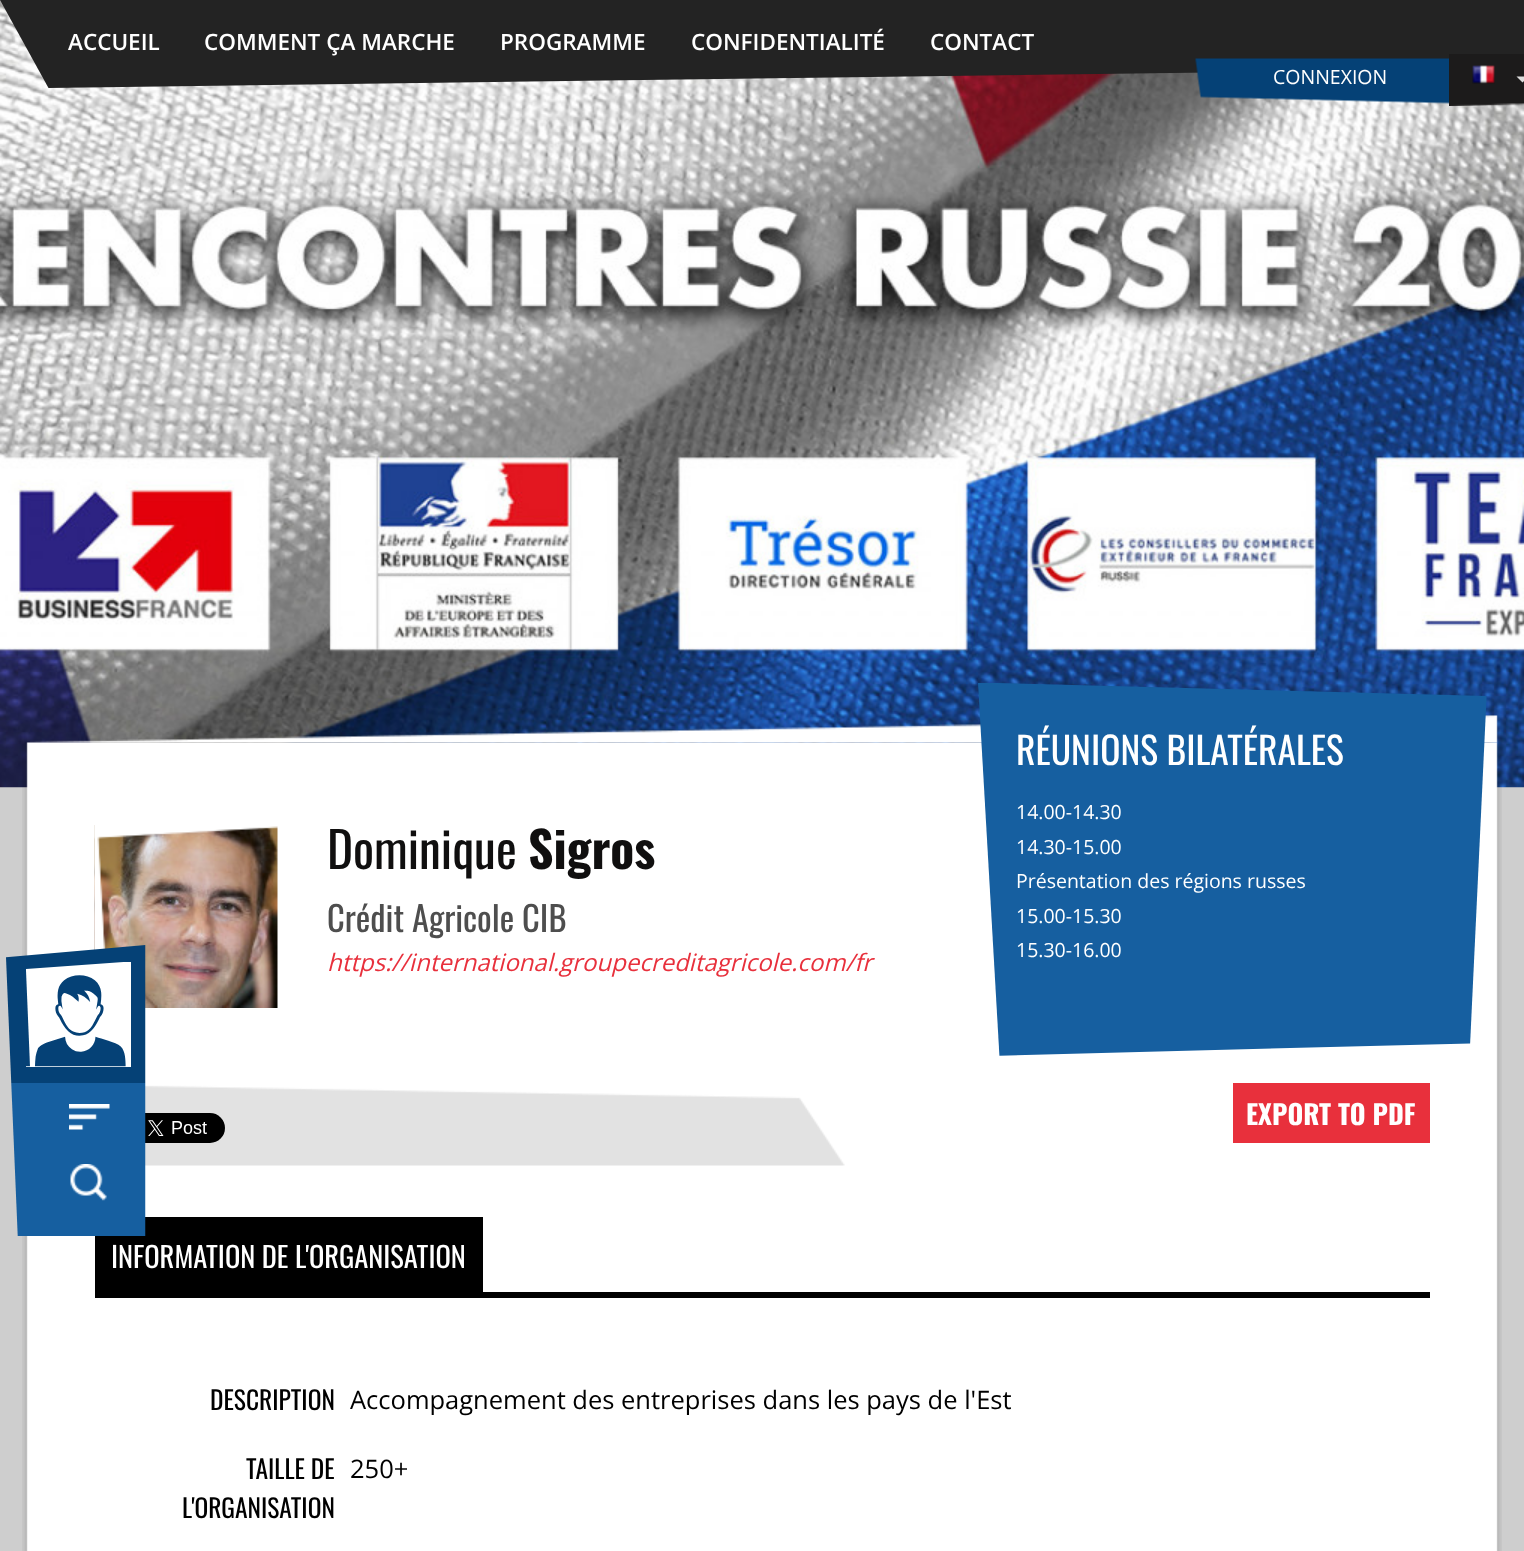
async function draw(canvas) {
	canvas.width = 1524;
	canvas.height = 1551;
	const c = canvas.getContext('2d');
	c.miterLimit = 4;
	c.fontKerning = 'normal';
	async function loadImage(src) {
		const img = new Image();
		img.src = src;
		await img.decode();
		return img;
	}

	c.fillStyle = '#cecece';
	c.fillRect(0, 0, 1524, 1551);
	c.drawImage(await loadImage('img1.png'), 0, 0, 1524, 788);
	c.drawImage(await loadImage('img2.png'), 0, 0, 1524, 88);
	c.font = '600 22.5px Open Sans';
	c.fillStyle = '#fff';
	for (const [text, x, y] of [
		['ACCUEIL', 68, 50],
		['COMMENT ÇA MARCHE', 204, 50],
		['PROGRAMME', 500, 50],
		['CONFIDENTIALITÉ', 691, 50],
		['CONTACT', 930, 50],
	]) {
		c.fillText(text, x, y);
	}
	c.drawImage(await loadImage('img3.png'), 1195, 58, 254, 46);
	c.font = '19.5px Open Sans';
	c.fillText('CONNEXION', 1273, 84);
	c.drawImage(await loadImage('img4.png'), 1449, 54, 75, 52);
	c.drawImage(await loadImage('img5.png'), 1472, 65, 23, 19);
	c.fillStyle = '#ddd';
	c.beginPath();
	c.moveTo(1516.5, 76.5);
	c.lineTo(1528.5, 76.5);
	c.lineTo(1522.5, 82.5);
	c.closePath();
	c.fill();
	c.drawImage(await loadImage('img6.png'), 30, 715, 1472, 28);
	c.drawImage(await loadImage('img7.png'), 22, 742, 1480, 809);
	c.drawImage(await loadImage('img15.png'), 94, 825, 184, 183);
	c.drawImage(await loadImage('img16.png'), 94, 825, 12, 125);
	c.drawImage(await loadImage('img8.png'), 6, 945, 140, 138);
	c.fillStyle = '#fff';
	c.fillRect(26, 962, 105, 105);
	c.drawImage(await loadImage('img9.png'), 26, 962, 97, 7);
	c.drawImage(await loadImage('img10.png'), 26, 971, 4, 96);
	c.drawImage(await loadImage('img11.png'), 35, 975, 91, 92);
	c.drawImage(await loadImage('img19.png'), 145, 1085, 700, 81);
	c.drawImage(await loadImage('img20.png'), 145, 1113, 80, 30);
	c.fillStyle = '#000';
	c.fillRect(95, 1217, 388, 75);
	c.drawImage(await loadImage('img12.png'), 11, 1083, 135, 153);
	c.drawImage(await loadImage('img13.png'), 69, 1104, 41, 26);
	c.drawImage(await loadImage('img14.png'), 70, 1164, 37, 37);
	c.drawImage(await loadImage('img17.png'), 94, 825, 184, 14);
	c.font = '49.5px Oswald';
	c.fillStyle = '#100f0f';
	c.fillText('Dominique', 327, 869);
	c.font = 'bold 49.5px Oswald';
	c.fillText('Sigros', 528, 869);
	c.font = '34.5px Oswald';
	c.fillStyle = '#4e4e4e';
	c.fillText('Crédit Agricole CIB', 327, 932);
	c.font = 'italic 24px Open Sans';
	c.fillStyle = '#e8303c';
	c.fillText('https://international.groupecreditagricole.com/fr', 327, 971);
	c.drawImage(await loadImage('img18.png'), 978, 683, 509, 373);
	c.font = '37.5px Oswald';
	c.fillStyle = '#fff';
	c.fillText('RÉUNIONS BILATÉRALES', 1016, 765);
	c.font = '19.5px Open Sans';
	for (const [text, x, y] of [
		['14.00-14.30', 1016, 819],
		['14.30-15.00', 1016, 854],
		['Présentation des régions russes', 1016, 888],
		['15.00-15.30', 1016, 923],
		['15.30-16.00', 1016, 957],
	]) {
		c.fillText(text, x, y);
	}
	c.fillStyle = '#e8303c';
	c.fillRect(1233, 1083, 197, 60);
	c.font = 'bold 27px Oswald';
	c.fillStyle = '#fff';
	c.fillText('EXPORT TO PDF', 1246, 1125);
	c.fillStyle = '#000';
	c.fillRect(95, 1292, 1335, 6);
	c.font = '28.5px Oswald';
	c.fillStyle = '#fff';
	c.fillText('INFORMATION DE L\'ORGANISATION', 111, 1268);
	c.font = '25.5px Oswald';
	c.fillStyle = '#000';
	c.fillText('DESCRIPTION', 210, 1410);
	c.font = '25.5px Open Sans';
	c.fillText('Accompagnement des entreprises dans les pays de l\'Est', 350, 1409);
	c.font = '25.5px Oswald';
	c.fillText('TAILLE DE', 246, 1479);
	c.fillText('L\'ORGANISATION', 182, 1518);
	c.font = '25.5px Open Sans';
	c.fillText('250+', 350, 1478);
}

draw(document.querySelector('canvas'));
